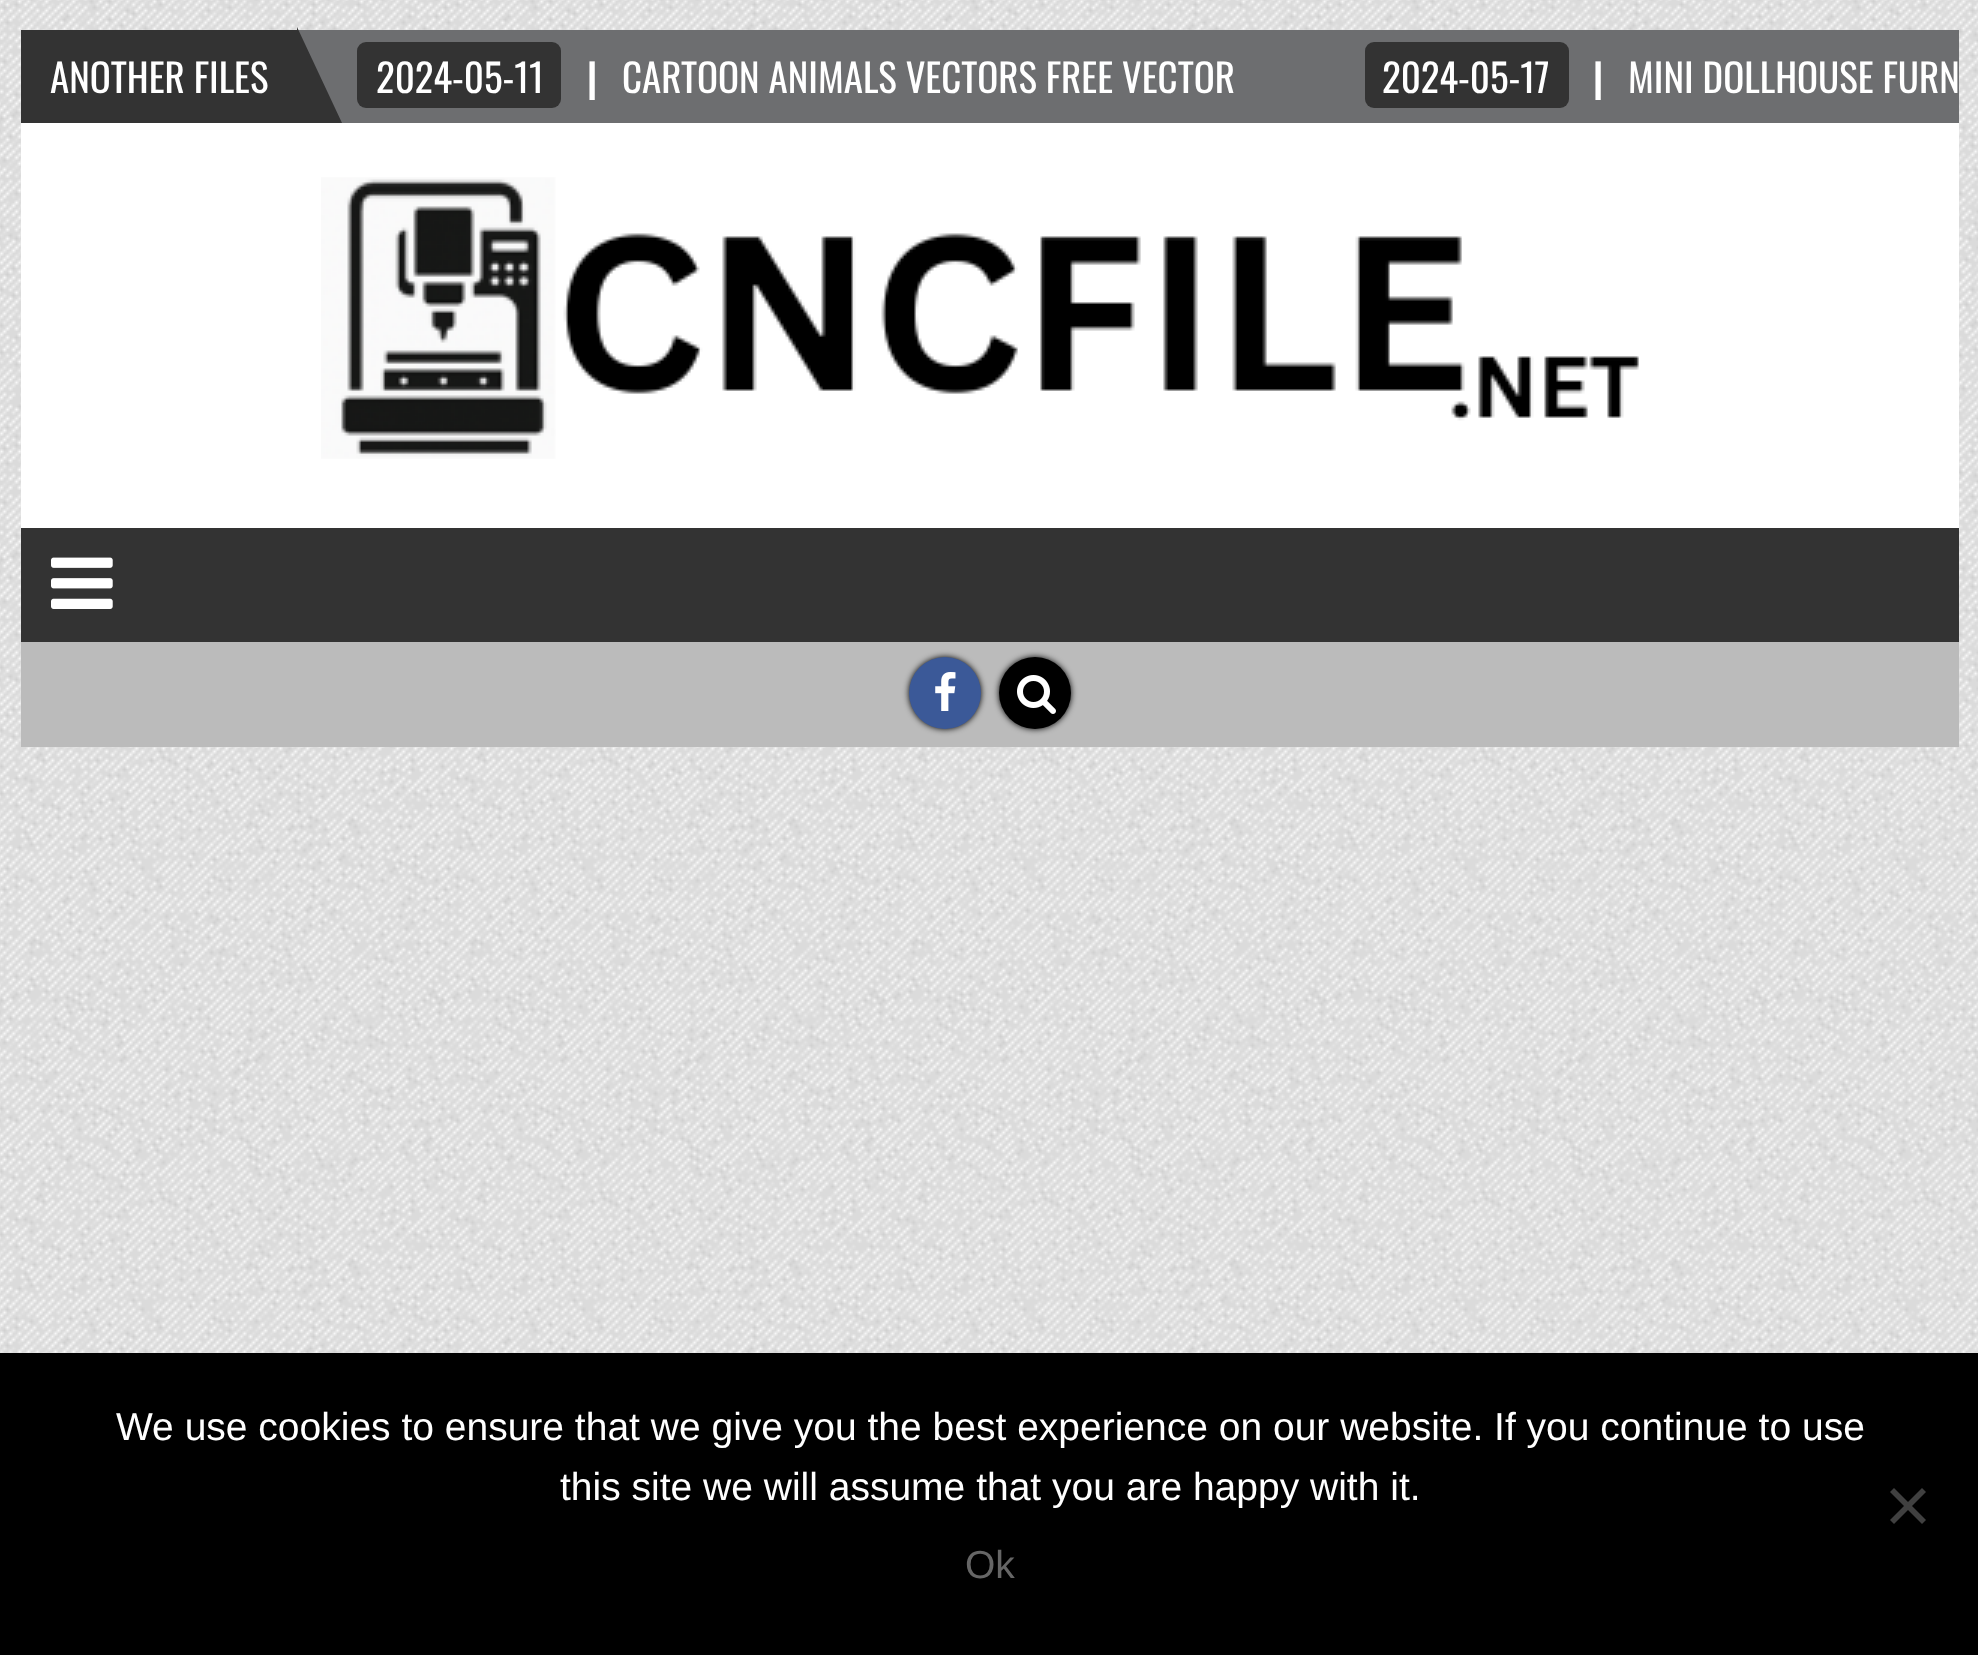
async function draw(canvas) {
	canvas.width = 1978;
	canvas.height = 1655;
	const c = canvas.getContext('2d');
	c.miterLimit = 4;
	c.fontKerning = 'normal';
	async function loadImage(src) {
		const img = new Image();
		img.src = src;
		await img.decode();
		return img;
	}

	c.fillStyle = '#fff';
	c.fillRect(0, 0, 1978, 1655);
	c.drawImage(await loadImage('img1.png'), 0, 0, 1978, 1353);
	c.fillStyle = '#6d6e70';
	c.fillRect(298, 30, 1661, 93);
	c.fillStyle = '#333';
	c.fillRect(21, 30, 276, 93);
	c.font = '39px Oswald';
	c.fillStyle = '#fff';
	c.fillText('ANOTHER FILES', 50, 93);
	c.fillStyle = '#333';
	c.beginPath();
	c.moveTo(297, 123);
	c.lineTo(297, 27);
	c.lineTo(342, 123);
	c.closePath();
	c.fill();
	c.beginPath();
	c.roundRect(357, 42, 204, 66, 9);
	c.fill();
	c.fillStyle = '#fff';
	c.fillText('2024-05-11', 376, 93);
	c.font = 'bold 39px Oswald';
	c.fillText('|', 587, 93);
	c.font = '39px Oswald';
	c.fillText('CARTOON ANIMALS VECTORS FREE VECTOR', 622, 93);
	c.fillStyle = '#333';
	c.beginPath();
	c.roundRect(1365, 42, 204, 66, 9);
	c.fill();
	c.fillStyle = '#fff';
	c.fillText('2024-05-17', 1382, 93);
	c.font = 'bold 39px Oswald';
	c.fillText('|', 1593, 93);
	c.font = '39px Oswald';
	c.fillText('MINI DOLLHOUSE FURN', 1628, 93);
	c.fillRect(21, 123, 1938, 405);
	c.drawImage(await loadImage('img2.png'), 321, 177, 1318, 282);
	c.fillStyle = '#333';
	c.fillRect(21, 528, 1938, 114);
	c.drawImage(await loadImage('img3.png'), 51, 557, 62, 52);
	c.fillStyle = '#bbb';
	c.fillRect(21, 642, 1938, 105);
	c.fillStyle = '#000';
	c.filter = 'blur(3px)';
	c.beginPath();
	c.roundRect(909, 657, 72, 72, 36);
	c.fill();
	c.filter = 'none';
	c.fillStyle = '#3b5998';
	c.beginPath();
	c.arc(945, 693, 36, 0, 2 * Math.PI);
	c.fill();
	c.drawImage(await loadImage('img4.png'), 935, 672, 21, 39);
	c.fillStyle = '#000';
	c.filter = 'blur(3px)';
	c.beginPath();
	c.roundRect(999, 657, 72, 72, 36);
	c.fill();
	c.filter = 'none';
	c.beginPath();
	c.arc(1035, 693, 36, 0, 2 * Math.PI);
	c.fill();
	c.drawImage(await loadImage('img5.png'), 1017, 675, 39, 39);
	c.fillRect(0, 1353, 1978, 302);
	c.font = '39px Liberation Sans';
	c.fillStyle = '#fff';
	c.fillText('We use cookies to ensure that we give you the best experience on our website. If you continue to use', 116, 1440);
	c.fillText('this site we will assume that you are happy with it.', 560, 1500);
	c.fillStyle = '#404040';
	c.beginPath();
	c.moveTo(1922, 1488);
	c.lineTo(1926, 1492);
	c.lineTo(1894, 1524);
	c.lineTo(1890, 1520);
	c.closePath();
	c.fill();
	c.beginPath();
	c.moveTo(1890, 1492);
	c.lineTo(1894, 1488);
	c.lineTo(1926, 1520);
	c.lineTo(1922, 1524);
	c.closePath();
	c.fill();
	c.fillStyle = '#666';
	c.fillText('Ok', 965, 1578);
}

draw(document.querySelector('canvas'));
